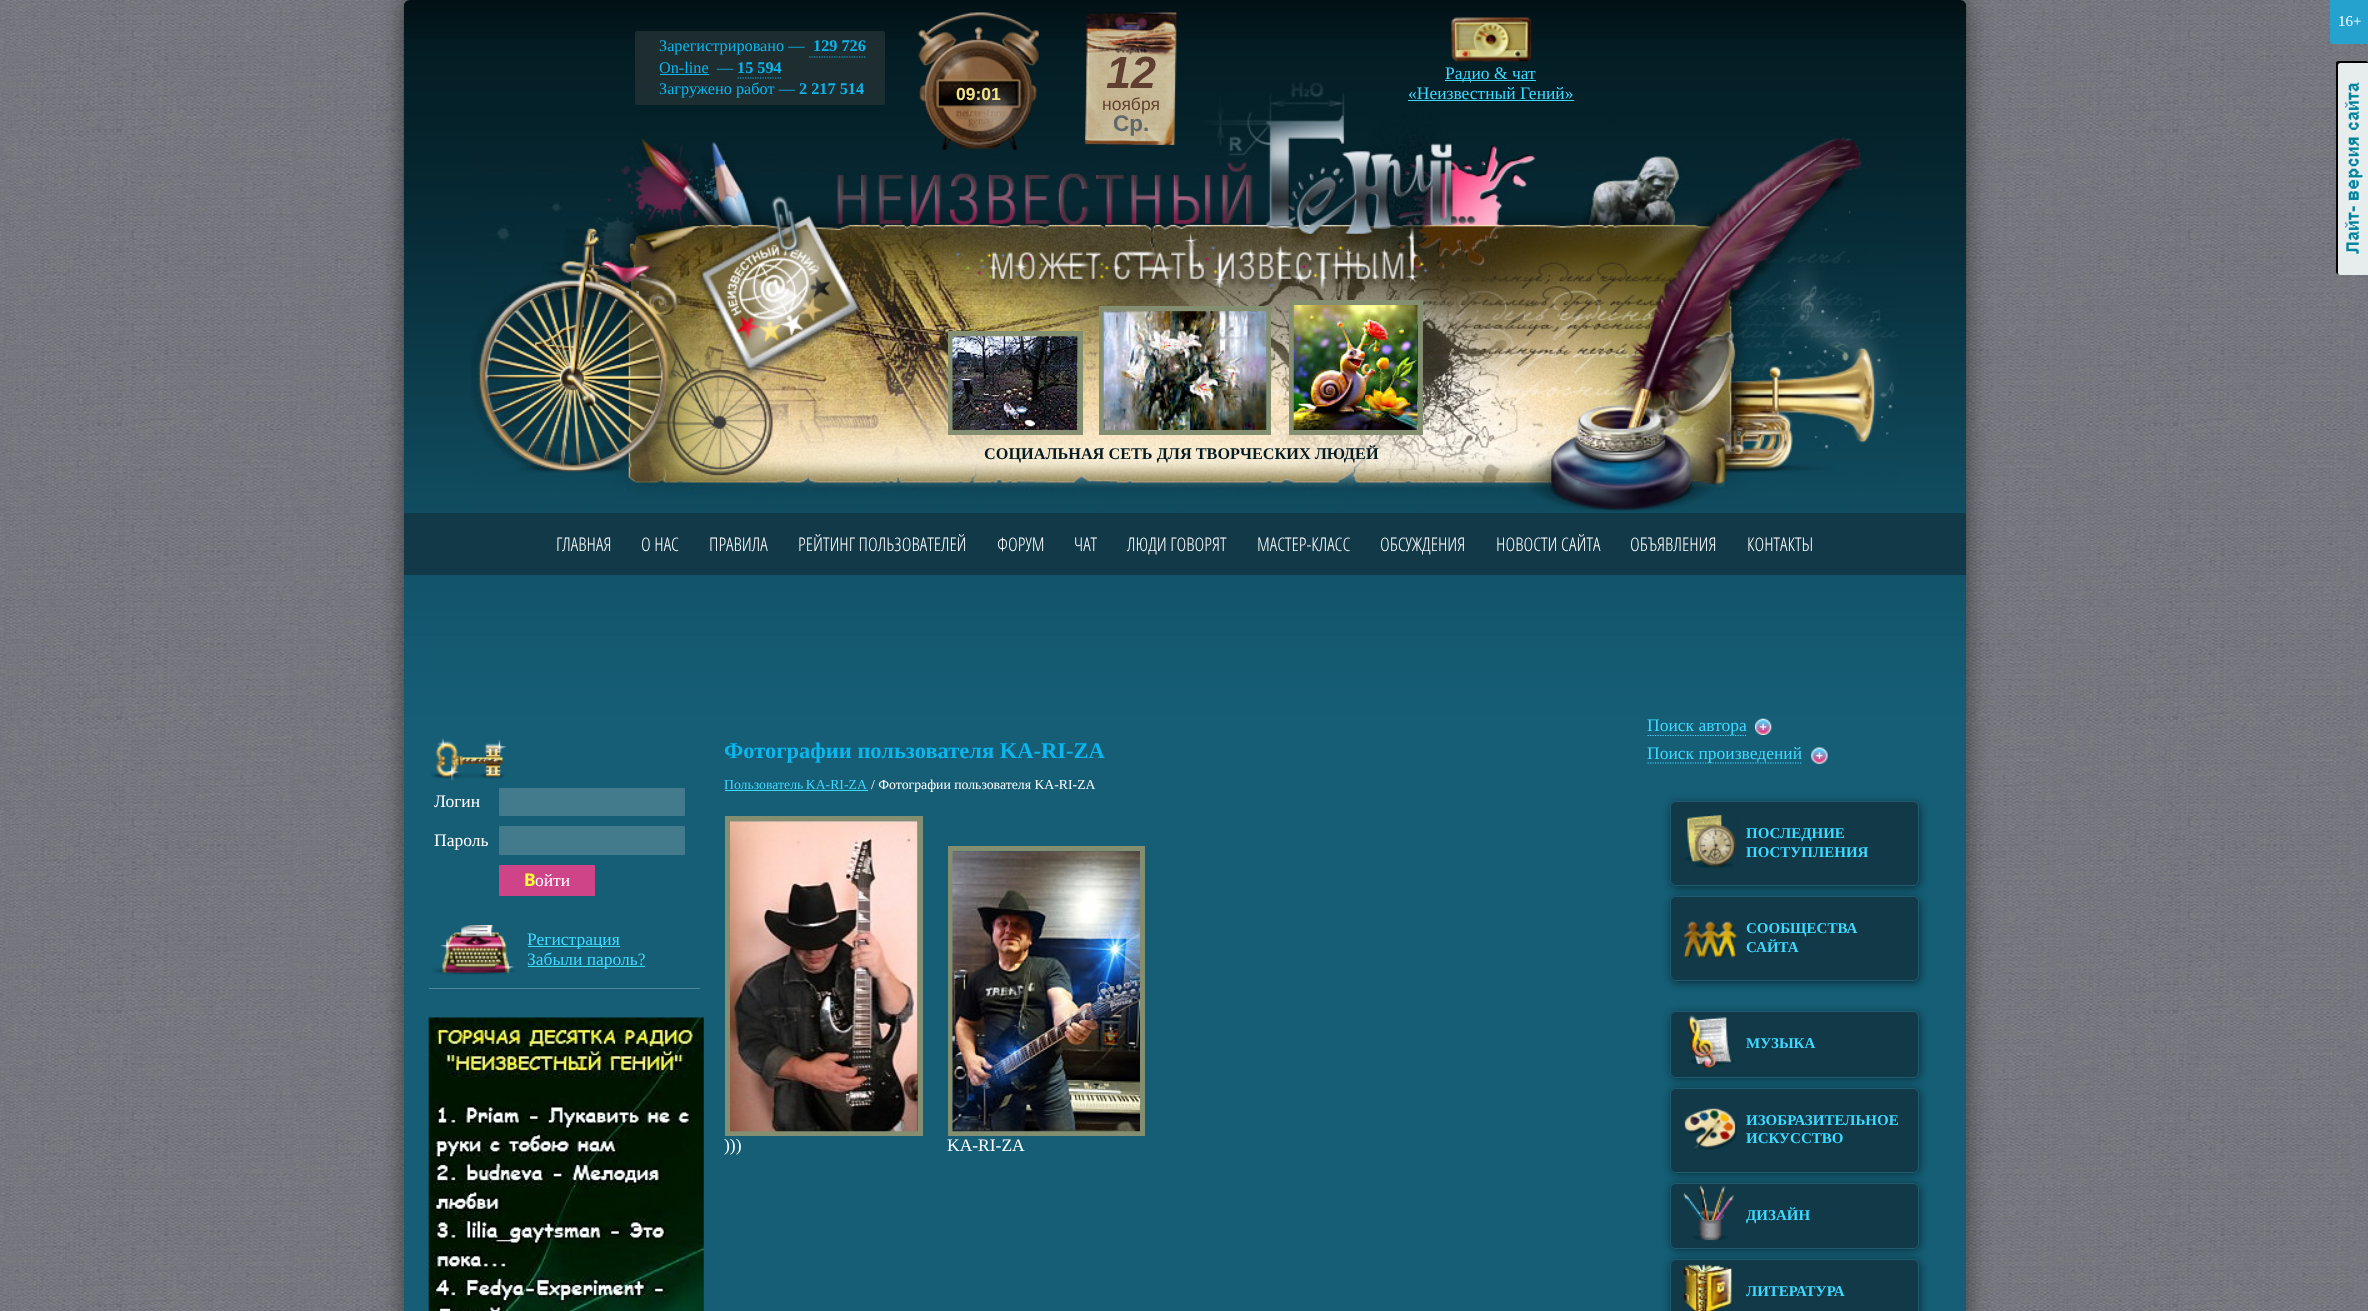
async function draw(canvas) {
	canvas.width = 2368;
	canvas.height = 1311;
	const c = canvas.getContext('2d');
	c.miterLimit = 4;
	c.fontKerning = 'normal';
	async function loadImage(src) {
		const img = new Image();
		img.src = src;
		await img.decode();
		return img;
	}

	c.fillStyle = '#fff';
	c.fillRect(0, 0, 2368, 1311);
	c.drawImage(await loadImage('img1.png'), 0, 0, 2368, 1311);
	c.fillStyle = '#25a2ce';
	c.beginPath();
	c.moveTo(2330, 0);
	c.lineTo(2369, 0);
	c.lineTo(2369, 44);
	c.lineTo(2332.5, 44);
	c.bezierCurveTo(2331, 44, 2330, 43, 2330, 41.5);
	c.closePath();
	c.fill();
	c.font = '15px Liberation Serif';
	c.fillStyle = '#fff';
	c.fillText('16+', 2338, 26);
	c.fillStyle = '#00000080';
	c.filter = 'blur(12.5px)';
	c.beginPath();
	c.roundRect(404, 0, 1562, 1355, 6);
	c.fill();
	c.filter = 'none';
	c.fillStyle = '#155e76';
	c.beginPath();
	c.roundRect(404, 0, 1562, 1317, 6);
	c.fill();
	c.drawImage(await loadImage('img2.png'), 403, 0, 1564, 716);
	c.drawImage(await loadImage('img3.png'), 471, 82, 1428, 430);
	c.fillStyle = '#223032d9';
	c.beginPath();
	c.roundRect(635, 31, 250, 74, 2.5);
	c.fill();
	c.font = '16.25px Liberation Serif';
	c.fillStyle = '#0cb5ec';
	c.fillText('Зарегистрировано —', 659, 51);
	c.beginPath();
	c.moveTo(809, 57);
	c.lineTo(866, 57);
	c.strokeStyle = '#0cb5ec';
	c.lineWidth = 1.2;
	c.setLineDash([1.25, 1.25]);
	c.stroke();
	c.font = 'bold 16.25px Liberation Serif';
	c.fillText('129 726', 813, 51);
	c.font = '16.25px Liberation Serif';
	c.fillText('On-line', 659, 73);
	c.fillRect(660, 74, 49, 1);
	c.fillText('—', 717, 73);
	c.beginPath();
	c.moveTo(737.5, 78);
	c.lineTo(781, 78);
	c.stroke();
	c.font = 'bold 16.25px Liberation Serif';
	c.fillText('15 594', 737, 73);
	c.font = '16.25px Liberation Serif';
	c.fillText('Загружено работ —', 659, 94);
	c.font = 'bold 16.25px Liberation Serif';
	c.fillText('2 217 514', 799, 94);
	c.drawImage(await loadImage('img4.png'), 917, 12, 122, 138);
	c.font = 'bold 17.5px Liberation Sans';
	c.fillStyle = '#f2e38a';
	c.fillText('09:01', 956, 100);
	c.drawImage(await loadImage('img5.png'), 1085, 12, 92, 133);
	c.font = 'italic bold 45px Liberation Sans';
	c.fillStyle = '#603e30';
	c.fillText('12', 1106, 88);
	c.font = '17.5px Liberation Sans';
	c.fillText('ноября', 1102, 110);
	c.font = 'bold 22.5px Liberation Sans';
	c.fillStyle = '#5e676e';
	c.fillText('Ср.', 1113, 131);
	c.drawImage(await loadImage('img6.png'), 1451, 17, 81, 46);
	c.fillStyle = '#3fd9ff';
	c.fillRect(1445, 80, 91, 1);
	c.font = '17.5px Liberation Serif';
	c.fillText('Радио & чат', 1445, 79);
	c.fillText('«Неизвестный Гений»', 1408, 99);
	c.fillRect(1408, 100, 166, 1);
	c.strokeStyle = '#848e71';
	c.lineWidth = 5;
	c.setLineDash([]);
	c.strokeRect(1291.5, 302.5, 129, 130);
	c.strokeRect(1101.5, 308.5, 167, 124);
	c.drawImage(await loadImage('img7.png'), 1293, 305, 125, 125);
	c.strokeRect(950.5, 333.5, 130, 99);
	c.drawImage(await loadImage('img8.png'), 1103, 311, 164, 119);
	c.drawImage(await loadImage('img9.png'), 952, 336, 126, 94);
	c.font = 'bold 16.25px Liberation Serif';
	c.fillStyle = '#031c23';
	c.fillText('СОЦИАЛЬНАЯ СЕТЬ ДЛЯ ТВОРЧЕСКИХ ЛЮДЕЙ', 984, 459);
	c.fillStyle = '#113948';
	c.fillRect(404, 513, 1562, 62);
	c.font = '300 18.75px Open Sans Condensed';
	c.fillStyle = '#fff';
	for (const [text, x, y] of [
		['ГЛАВНАЯ', 556, 551],
		['О НАС', 641, 551],
		['ПРАВИЛА', 709, 551],
		['РЕЙТИНГ ПОЛЬЗОВАТЕЛЕЙ', 798, 551],
		['ФОРУМ', 997, 551],
		['ЧАТ', 1074, 551],
		['ЛЮДИ ГОВОРЯТ', 1127, 551],
		['МАСТЕР-КЛАСС', 1257, 551],
		['ОБСУЖДЕНИЯ', 1380, 551],
		['НОВОСТИ САЙТА', 1496, 551],
		['ОБЪЯВЛЕНИЯ', 1630, 551],
		['КОНТАКТЫ', 1747, 551],
	]) {
		c.fillText(text, x, y);
	}
	c.drawImage(await loadImage('img10.png'), 431, 738, 76, 43);
	c.font = '17.5px Liberation Serif';
	c.fillText('Логин', 434, 807);
	c.fillStyle = '#437a8c';
	c.beginPath();
	c.roundRect(499, 788, 186, 28, 1);
	c.fill();
	c.fillStyle = '#fff';
	c.fillText('Пароль', 434, 846);
	c.fillStyle = '#437a8c';
	c.beginPath();
	c.roundRect(499, 826, 186, 29, 1);
	c.fill();
	c.fillStyle = '#cf4488';
	c.beginPath();
	c.roundRect(499, 865, 96, 31, 1);
	c.fill();
	c.font = 'bold 17.5px Noto Sans';
	c.fillStyle = '#ff3';
	c.fillText('В', 524, 886);
	c.font = '17.5px Liberation Serif';
	c.fillStyle = '#fff';
	c.fillText('ойти', 535, 886);
	c.drawImage(await loadImage('img11.png'), 432, 925, 84, 50);
	c.fillStyle = '#3fd9ff';
	c.fillRect(528, 946, 92, 1);
	c.fillText('Регистрация', 527, 945);
	c.fillRect(528, 966, 117, 1);
	c.fillText('Забыли пароль?', 527, 965);
	c.fillStyle = '#508698';
	c.fillRect(429, 988, 271, 1);
	c.drawImage(await loadImage('img12.png'), 428, 1017, 276, 294);
	c.font = 'bold 22.5px Liberation Serif';
	c.fillStyle = '#0cb5ec';
	c.fillText('Фотографии пользователя KA-RI-ZA', 724, 758);
	c.wordSpacing = '-1px';
	c.font = '13.75px Liberation Serif';
	c.fillStyle = '#3fd9ff';
	c.fillText('Пользователь KA-RI-ZA', 724, 789);
	c.fillRect(725, 790, 143, 1);
	c.wordSpacing = '0px';
	c.fillStyle = '#fff';
	c.fillText('/ Фотографии пользователя KA-RI-ZA', 871, 789);
	c.strokeRect(727.5, 818.5, 193, 315);
	c.drawImage(await loadImage('img13.png'), 730, 821, 188, 311);
	c.font = '17.5px Liberation Serif';
	c.fillText(')))', 724, 1151);
	c.strokeRect(950.5, 848.5, 192, 285);
	c.drawImage(await loadImage('img14.png'), 952, 851, 188, 281);
	c.fillText('KA-RI-ZA', 947, 1151);
	c.beginPath();
	c.moveTo(1647.5, 735.5);
	c.lineTo(1746, 735.5);
	c.strokeStyle = '#3fd9ff';
	c.lineWidth = 1.2;
	c.setLineDash([1.25, 1.25]);
	c.stroke();
	c.fillStyle = '#3fd9ff';
	c.fillText('Поиск автора', 1647, 731);
	c.drawImage(await loadImage('img15.png'), 1755, 718, 17, 17);
	c.beginPath();
	c.moveTo(1647.5, 763);
	c.lineTo(1802.5, 763);
	c.stroke();
	c.fillText('Поиск произведений', 1647, 759);
	c.drawImage(await loadImage('img16.png'), 1811, 747, 17, 17);
	c.fillStyle = '#00000080';
	c.filter = 'blur(4.5px)';
	c.beginPath();
	c.roundRect(1671, 803, 249, 85, 6);
	c.fill();
	c.filter = 'none';
	c.fillStyle = '#113948';
	c.beginPath();
	c.roundRect(1670.5, 801.5, 248, 84, 5.5);
	c.fill();
	c.strokeStyle = '#1f5b6f';
	c.lineWidth = 1;
	c.setLineDash([]);
	c.stroke();
	c.drawImage(await loadImage('img17.png'), 1684, 814, 53, 54);
	c.font = 'bold 15px Liberation Serif';
	c.fillStyle = '#3fd9ff';
	c.fillText('ПОСЛЕДНИЕ', 1746, 838);
	c.fillText('ПОСТУПЛЕНИЯ', 1746, 857);
	c.fillStyle = '#00000080';
	c.filter = 'blur(4.5px)';
	c.beginPath();
	c.roundRect(1671, 898, 249, 85, 6);
	c.fill();
	c.filter = 'none';
	c.fillStyle = '#113948';
	c.beginPath();
	c.roundRect(1670.5, 896.5, 248, 84, 5.5);
	c.fill();
	c.stroke();
	c.drawImage(await loadImage('img18.png'), 1683, 921, 54, 38);
	c.fillStyle = '#3fd9ff';
	c.fillText('СООБЩЕСТВА', 1746, 933);
	c.fillText('САЙТА', 1746, 952);
	c.fillStyle = '#00000080';
	c.filter = 'blur(4.5px)';
	c.beginPath();
	c.roundRect(1671, 1013, 249, 66, 6);
	c.fill();
	c.filter = 'none';
	c.fillStyle = '#113948';
	c.beginPath();
	c.roundRect(1670.5, 1011.5, 248, 66, 5.5);
	c.fill();
	c.stroke();
	c.drawImage(await loadImage('img19.png'), 1687, 1015, 48, 54);
	c.fillStyle = '#3fd9ff';
	c.fillText('МУЗЫКА', 1746, 1048);
	c.fillStyle = '#00000080';
	c.filter = 'blur(4.5px)';
	c.beginPath();
	c.roundRect(1671, 1089, 249, 85, 6);
	c.fill();
	c.filter = 'none';
	c.fillStyle = '#113948';
	c.beginPath();
	c.roundRect(1670.5, 1088.5, 248, 84, 5.5);
	c.fill();
	c.stroke();
	c.drawImage(await loadImage('img20.png'), 1684, 1108, 53, 42);
	c.fillStyle = '#3fd9ff';
	c.fillText('ИЗОБРАЗИТЕЛЬНОЕ', 1746, 1125);
	c.fillText('ИСКУССТВО', 1746, 1143);
	c.fillStyle = '#00000080';
	c.filter = 'blur(4.5px)';
	c.beginPath();
	c.roundRect(1671, 1184, 249, 66, 6);
	c.fill();
	c.filter = 'none';
	c.fillStyle = '#113948';
	c.beginPath();
	c.roundRect(1670.5, 1183.5, 248, 65, 5.5);
	c.fill();
	c.stroke();
	c.drawImage(await loadImage('img21.png'), 1683, 1185, 51, 56);
	c.fillStyle = '#3fd9ff';
	c.fillText('ДИЗАЙН', 1746, 1220);
	c.fillStyle = '#00000080';
	c.filter = 'blur(4.5px)';
	c.beginPath();
	c.roundRect(1671, 1260, 249, 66, 6);
	c.fill();
	c.filter = 'none';
	c.fillStyle = '#113948';
	c.beginPath();
	c.roundRect(1670.5, 1259.5, 248, 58, 5.5);
	c.fill();
	c.stroke();
	c.drawImage(await loadImage('img22.png'), 1683, 1264, 50, 47);
	c.fillStyle = '#3fd9ff';
	c.fillText('ЛИТЕРАТУРА', 1746, 1296);
	c.fillStyle = '#000';
	c.filter = 'blur(0.5px)';
	c.beginPath();
	c.roundRect(2336, 61, 32, 213, 2.5);
	c.fill();
	c.filter = 'none';
	c.fillStyle = '#e7eced';
	c.beginPath();
	c.moveTo(2340.5, 63);
	c.lineTo(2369, 63);
	c.lineTo(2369, 275);
	c.lineTo(2340.5, 275);
	c.bezierCurveTo(2339, 275, 2338, 274, 2338, 272.5);
	c.lineTo(2338, 65.5);
	c.bezierCurveTo(2338, 64, 2339, 63, 2340.5, 63);
	c.closePath();
	c.fill();
	c.drawImage(await loadImage('img23.png'), 2345, 82, 19, 173);
}

draw(document.querySelector('canvas'));
